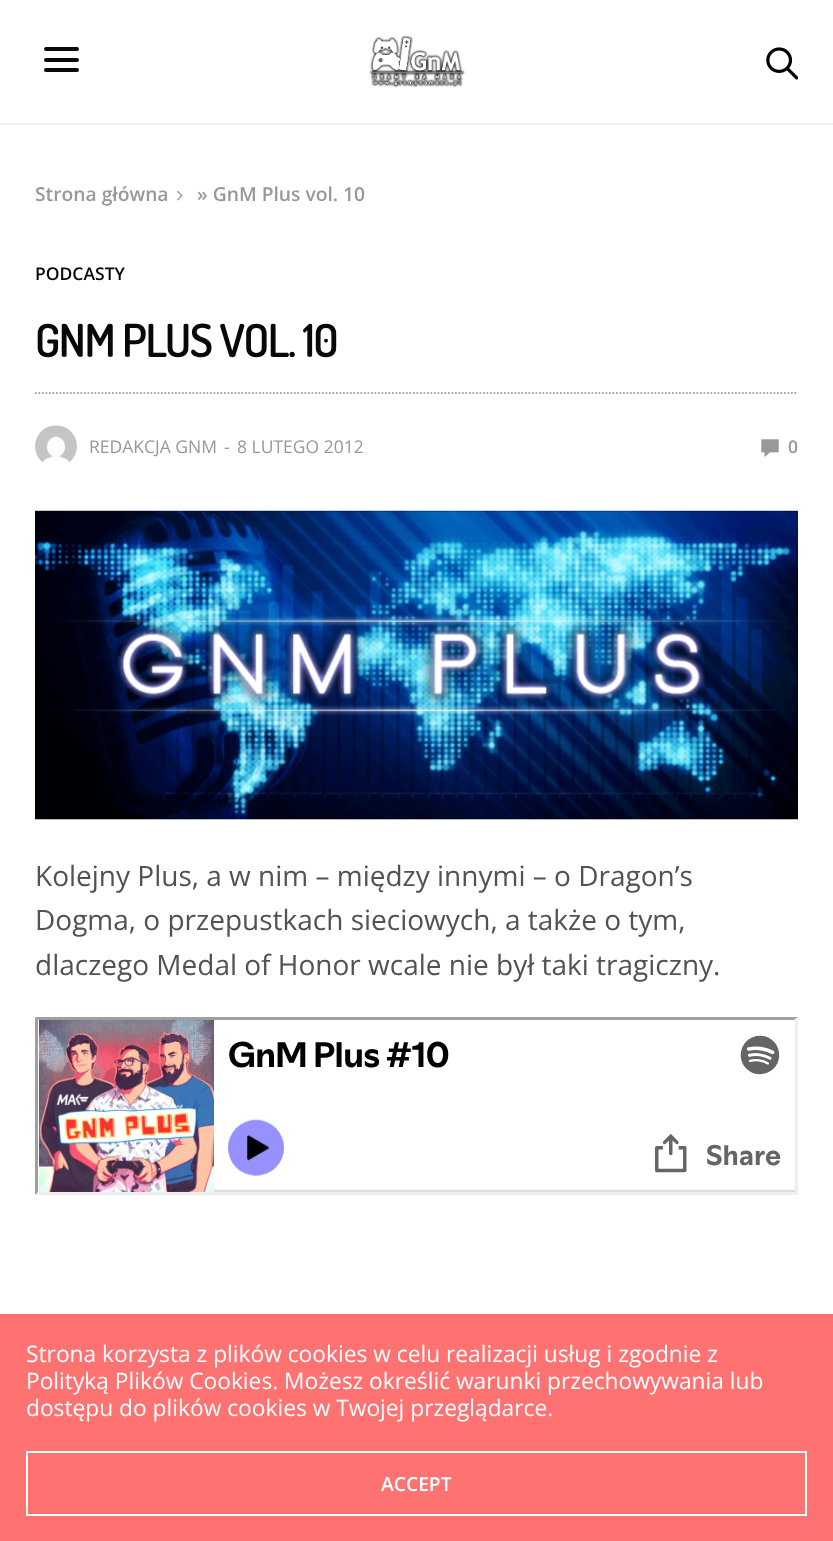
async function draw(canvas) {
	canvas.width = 833;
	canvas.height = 1541;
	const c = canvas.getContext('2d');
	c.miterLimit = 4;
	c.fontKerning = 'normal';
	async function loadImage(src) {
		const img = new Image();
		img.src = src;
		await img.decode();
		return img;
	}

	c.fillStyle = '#fff';
	c.fillRect(0, 0, 833, 1541);
	c.fillStyle = '#efefef';
	c.fillRect(0, 123, 833, 2);
	c.fillStyle = '#0a0a0a';
	c.beginPath();
	c.roundRect(44, 47, 35, 4, 2);
	c.fill();
	c.beginPath();
	c.roundRect(44, 58, 35, 4, 2);
	c.fill();
	c.beginPath();
	c.roundRect(44, 68, 35, 4, 2);
	c.fill();
	c.drawImage(await loadImage('img1.png'), 369, 35, 96, 53);
	c.drawImage(await loadImage('img2.png'), 766, 47, 32, 33);
	c.font = '600 19.25px Open Sans';
	c.fillStyle = '#989898';
	c.fillText('Strona główna', 35, 201);
	c.drawImage(await loadImage('img3.png'), 177, 190, 6, 11);
	c.fillText('» GnM Plus vol. 10', 197, 201);
	c.font = '600 17.5px Open Sans';
	c.fillStyle = '#080808';
	c.fillText('PODCASTY', 35, 280);
	c.beginPath();
	c.moveTo(35, 393);
	c.lineTo(798, 393);
	c.strokeStyle = '#a8a8a8';
	c.lineWidth = 1.8;
	c.setLineDash([1.75, 1.75]);
	c.stroke();
	c.letterSpacing = '-1.4px';
	c.font = '600 45.5px Dosis';
	c.fillText('GNM PLUS VOL. 10', 35, 357);
	c.drawImage(await loadImage('img4.png'), 35, 425, 42, 38);
	c.letterSpacing = '0px';
	c.font = '17.5px Open Sans';
	c.fillStyle = '#989898';
	for (const [text, x, y] of [
		['REDAKCJA GNM', 89, 453],
		['-', 224, 453],
		['8 LUTEGO 2012', 237, 453],
	]) {
		c.fillText(text, x, y);
	}
	c.drawImage(await loadImage('img5.png'), 761, 439, 18, 18);
	c.font = '600 17.5px Open Sans';
	c.fillText('0', 788, 453);
	c.fillStyle = '#080808';
	c.fillRect(35, 511, 763, 308);
	c.drawImage(await loadImage('img6.png'), 35, 510, 763, 310);
	c.font = '28px Open Sans';
	c.fillStyle = '#525252';
	for (const [text, x, y] of [
		['Kolejny Plus, a w nim – między innymi – o Dragon’s', 35, 886],
		['Dogma, o przepustkach sieciowych, a także o tym,', 35, 930],
		['dlaczego Medal of Honor wcale nie był taki tragiczny.', 35, 975],
	]) {
		c.fillText(text, x, y);
	}
	c.fillStyle = '#9f9f9f';
	c.beginPath();
	c.moveTo(35, 1017);
	c.lineTo(798, 1017);
	c.lineTo(794, 1020);
	c.lineTo(38, 1020);
	c.closePath();
	c.fill();
	c.fillStyle = '#eee';
	c.beginPath();
	c.moveTo(798, 1017);
	c.lineTo(798, 1195);
	c.lineTo(794, 1192);
	c.lineTo(794, 1020);
	c.closePath();
	c.fill();
	c.beginPath();
	c.moveTo(798, 1195);
	c.lineTo(35, 1195);
	c.lineTo(38, 1192);
	c.lineTo(794, 1192);
	c.closePath();
	c.fill();
	c.fillStyle = '#9f9f9f';
	c.beginPath();
	c.moveTo(35, 1195);
	c.lineTo(35, 1017);
	c.lineTo(38, 1020);
	c.lineTo(38, 1192);
	c.closePath();
	c.fill();
	c.drawImage(await loadImage('img7.png'), 39, 1020, 756, 172);
	c.fillStyle = '#ff7272';
	c.fillRect(0, 1314, 833, 227);
	c.font = '22.75px Open Sans';
	c.fillStyle = '#fff';
	for (const [text, x, y] of [
		['Strona korzysta z plików cookies w celu realizacji usług i zgodnie z', 26, 1362],
		['Polityką Plików Cookies. Możesz określić warunki przechowywania lub', 26, 1389],
		['dostępu do plików cookies w Twojej przeglądarce.', 26, 1416],
	]) {
		c.fillText(text, x, y);
	}
	c.strokeStyle = '#fff';
	c.lineWidth = 2;
	c.setLineDash([]);
	c.strokeRect(27, 1452, 779, 63);
	c.font = '600 19.25px Open Sans';
	c.fillText('ACCEPT', 381, 1491);
}

draw(document.querySelector('canvas'));
